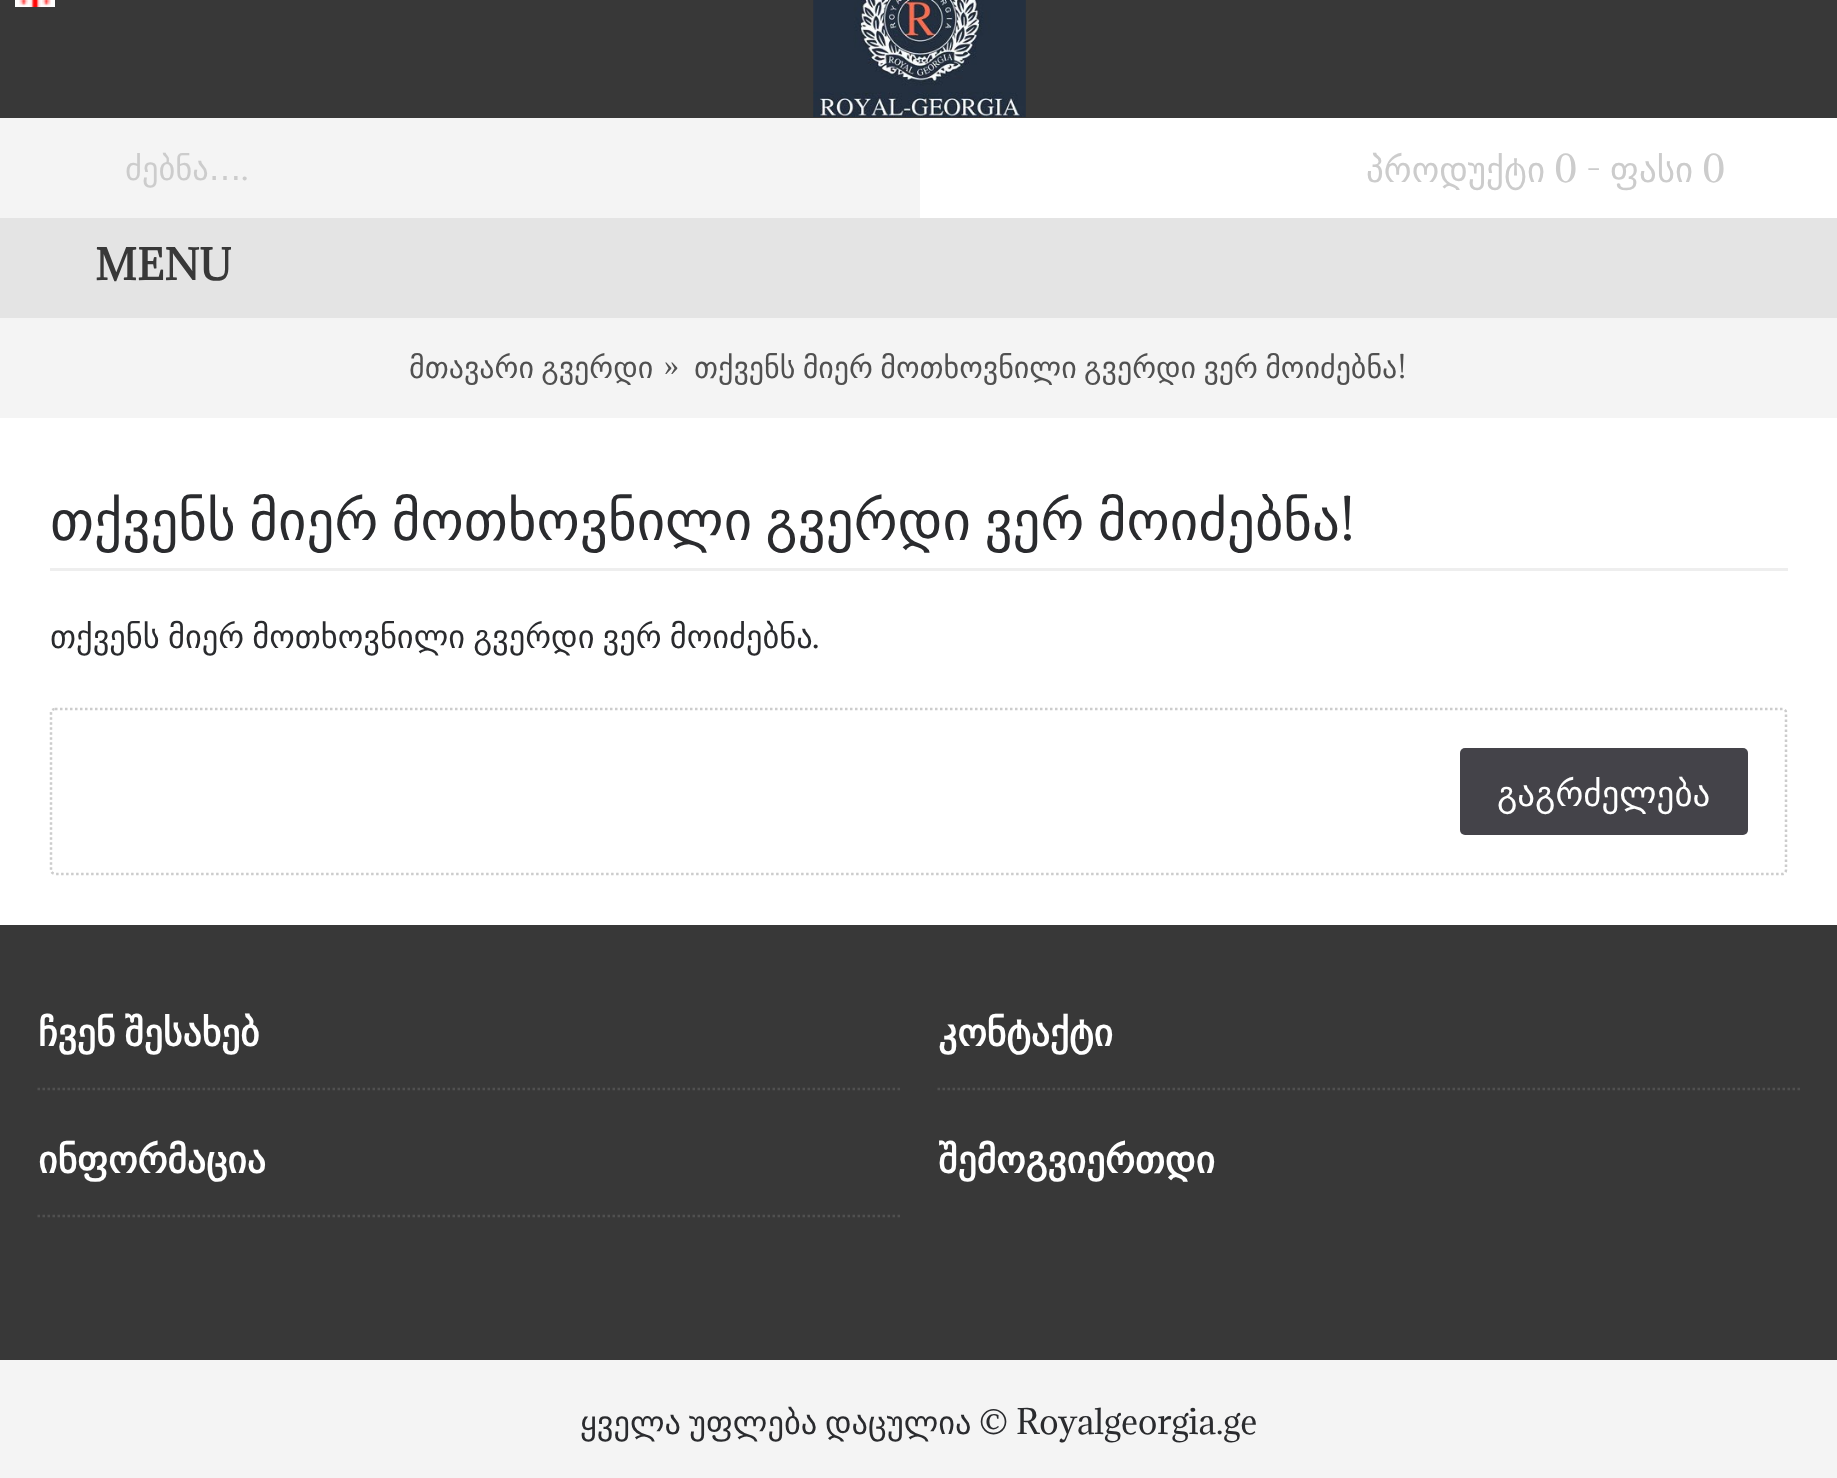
async function draw(canvas) {
	canvas.width = 1837;
	canvas.height = 1478;
	const c = canvas.getContext('2d');
	c.miterLimit = 4;
	c.fontKerning = 'normal';
	async function loadImage(src) {
		const img = new Image();
		img.src = src;
		await img.decode();
		return img;
	}

	c.fillStyle = '#fff';
	c.fillRect(0, 0, 1837, 1478);
	c.fillStyle = '#383838';
	c.fillRect(0, 0, 1837, 118);
	c.drawImage(await loadImage('img1.png'), 15, 0, 40, 7);
	c.drawImage(await loadImage('img2.png'), 813, 0, 213, 117);
	c.fillStyle = '#f4f4f4';
	c.fillRect(0, 118, 920, 100);
	c.font = '32.5px DejaVu Sans';
	c.fillStyle = '#ccc';
	c.fillText('ძებნა…', 125, 180);
	c.font = '32.5px Adamina';
	c.fillText('.', 241, 180);
	c.font = '35px DejaVu Sans';
	c.fillText('პროდუქტი', 1366, 182);
	c.font = '35px Adamina';
	c.fillText('0 -', 1554, 182);
	c.font = '35px DejaVu Sans';
	c.fillText('ფასი', 1610, 182);
	c.font = '35px Adamina';
	c.fillText('0', 1702, 182);
	c.fillStyle = '#e4e4e4';
	c.fillRect(0, 218, 1837, 100);
	c.font = 'bold 40px Adamina';
	c.fillStyle = '#383838';
	c.fillText('MENU', 95, 280);
	c.fillStyle = '#f4f4f4';
	c.fillRect(0, 318, 1837, 100);
	c.wordSpacing = '-2.25px';
	c.font = '30px DejaVu Sans';
	c.fillStyle = '#505050';
	c.fillText('მთავარი გვერდი', 409, 378);
	c.wordSpacing = '0px';
	c.font = '30px Liberation Serif';
	c.fillText('»', 664, 375);
	c.wordSpacing = '-2.25px';
	c.font = '30px DejaVu Sans';
	c.fillText('თქვენს მიერ მოთხოვნილი გვერდი ვერ მოიძებნა', 694, 378);
	c.wordSpacing = '0px';
	c.font = '30px Adamina';
	c.fillText('!', 1398, 378);
	c.fillStyle = '#eee';
	c.fillRect(50, 568, 1738, 3);
	c.wordSpacing = '-4px';
	c.font = '55px DejaVu Sans';
	c.fillStyle = '#2a2b2e';
	c.fillText('თქვენს მიერ მოთხოვნილი გვერდი ვერ მოიძებნა', 50, 540);
	c.wordSpacing = '0px';
	c.font = '55px Adamina';
	c.fillText('!', 1340, 540);
	c.wordSpacing = '-2.25px';
	c.font = '32.5px DejaVu Sans';
	c.fillText('თქვენს მიერ მოთხოვნილი გვერდი ვერ მოიძებნა', 50, 648);
	c.wordSpacing = '0px';
	c.font = '32.5px Adamina';
	c.fillText('.', 812, 648);
	c.beginPath();
	c.moveTo(55, 709);
	c.lineTo(1782.5, 709);
	c.bezierCurveTo(1784.5, 709, 1786, 710.5, 1786, 712.5);
	c.lineTo(1786, 870);
	c.bezierCurveTo(1786, 872, 1784.5, 874, 1782.5, 874);
	c.lineTo(55, 874);
	c.bezierCurveTo(53, 874, 51, 872, 51, 870);
	c.lineTo(51, 712.5);
	c.bezierCurveTo(51, 710.5, 53, 709, 55, 709);
	c.closePath();
	c.strokeStyle = '#ccc';
	c.lineWidth = 2.5;
	c.setLineDash([2.5, 2.5]);
	c.stroke();
	c.fillStyle = '#444349';
	c.beginPath();
	c.roundRect(1460, 748, 288, 87, 5);
	c.fill();
	c.font = '35px DejaVu Sans';
	c.fillStyle = '#fff';
	c.fillText('გაგრძელება', 1497, 806);
	c.fillStyle = '#383838';
	c.fillRect(0, 925, 1837, 435);
	c.beginPath();
	c.moveTo(37.5, 1089);
	c.lineTo(900, 1089);
	c.strokeStyle = '#505050';
	c.stroke();
	c.wordSpacing = '-3px';
	c.font = 'bold 37.5px DejaVu Sans';
	c.fillStyle = '#fff';
	c.fillText('ჩვენ შესახებ', 38, 1046);
	c.beginPath();
	c.moveTo(937.5, 1089);
	c.lineTo(1800, 1089);
	c.stroke();
	c.wordSpacing = '0px';
	c.fillText('კონტაქტი', 938, 1046);
	c.beginPath();
	c.moveTo(37.5, 1216);
	c.lineTo(900, 1216);
	c.stroke();
	c.fillText('ინფორმაცია', 38, 1173);
	c.fillText('შემოგვიერთდი', 938, 1173);
	c.fillStyle = '#f4f4f4';
	c.fillRect(0, 1360, 1837, 118);
	c.font = '32.5px DejaVu Sans';
	c.fillStyle = '#2a2b2e';
	for (const [text, x, y] of [
		['ყველა', 580, 1434],
		['უფლება', 689, 1434],
		['დაცულია', 825, 1434],
	]) {
		c.fillText(text, x, y);
	}
	c.font = '32.5px Adamina';
	c.fillText('© Royalgeorgia.ge', 979, 1434);
}

draw(document.querySelector('canvas'));
